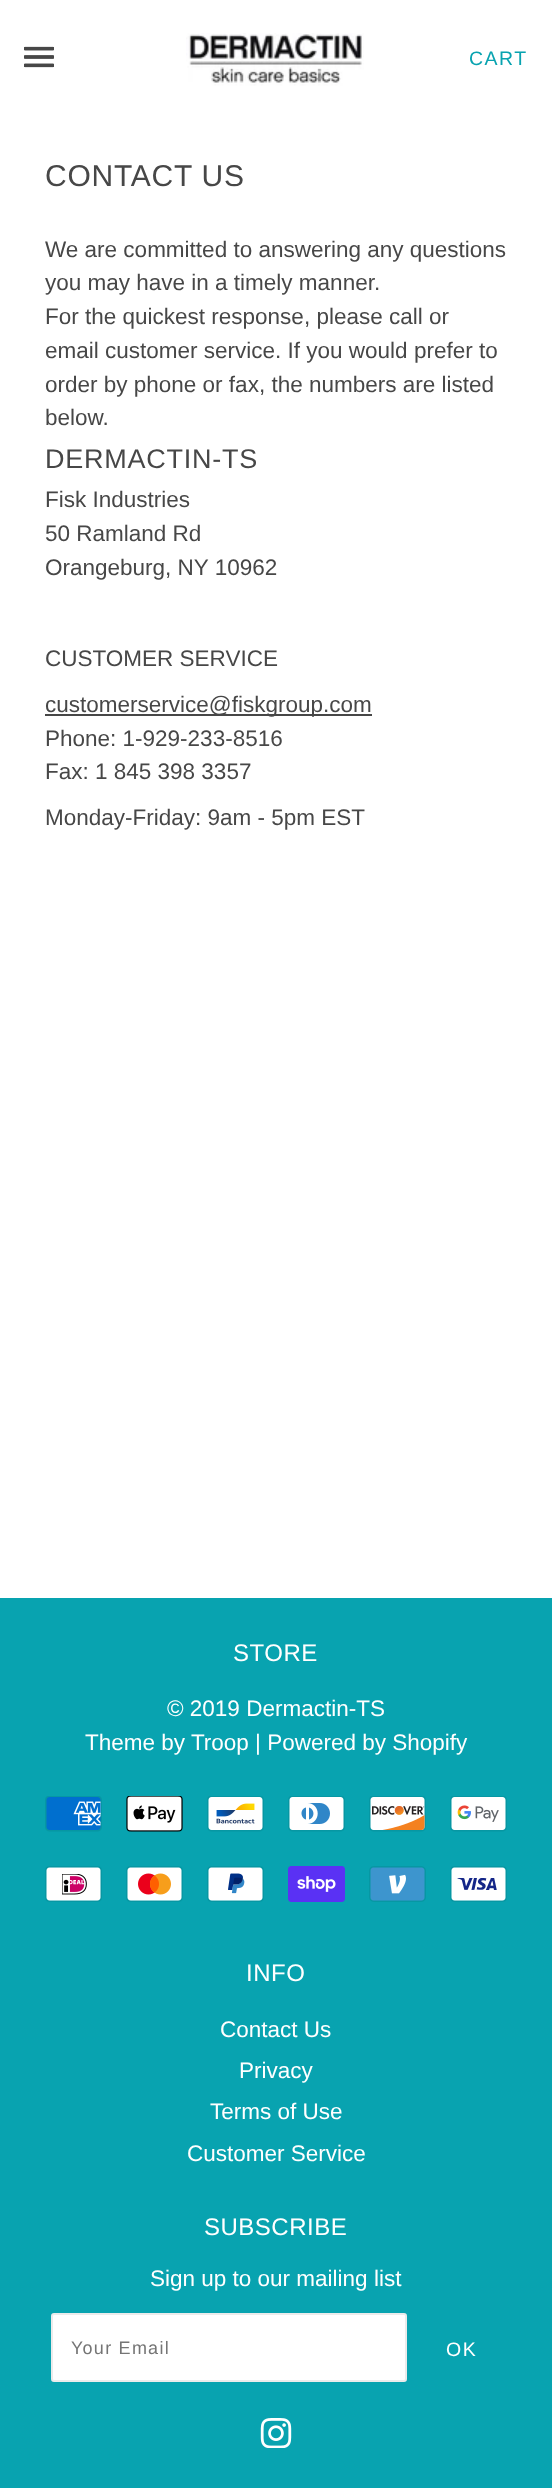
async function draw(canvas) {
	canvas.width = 552;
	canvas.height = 2488;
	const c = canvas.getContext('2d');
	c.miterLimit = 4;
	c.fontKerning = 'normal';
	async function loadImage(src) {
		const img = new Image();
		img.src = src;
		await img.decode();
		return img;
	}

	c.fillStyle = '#fff';
	c.fillRect(0, 0, 552, 2488);
	c.drawImage(await loadImage('img1.png'), 24, 46, 30, 22);
	c.drawImage(await loadImage('img2.png'), 186, 33, 178, 53);
	c.letterSpacing = '1.5px';
	c.font = '19.5px Liberation Sans';
	c.fillStyle = '#08a3b0';
	c.fillText('CART', 469, 65);
	c.letterSpacing = '0.75px';
	c.font = '30px Liberation Sans';
	c.fillStyle = '#474747';
	c.fillText('CONTACT US', 45, 186);
	c.letterSpacing = '0px';
	c.font = '22.5px Liberation Sans';
	for (const [text, x, y] of [
		['We are committed to answering any questions', 45, 257],
		['you may have in a timely manner.', 45, 290],
		['For the quickest response, please call or', 45, 324],
		['email customer service. If you would prefer to', 45, 358],
		['order by phone or fax, the numbers are listed', 45, 392],
		['below.', 45, 425],
	]) {
		c.fillText(text, x, y);
	}
	c.letterSpacing = '0.75px';
	c.font = '27px Liberation Sans';
	c.fillText('DERMACTIN-TS', 45, 468);
	c.letterSpacing = '0px';
	c.font = '22.5px Liberation Sans';
	for (const [text, x, y] of [
		['Fisk Industries', 45, 507],
		['50 Ramland Rd', 45, 541],
		['Orangeburg, NY 10962', 45, 575],
		['CUSTOMER SERVICE', 45, 666],
	]) {
		c.fillText(text, x, y);
	}
	c.fillRect(45, 714, 327, 2);
	for (const [text, x, y] of [
		['customerservice@fiskgroup.com', 45, 712],
		['Phone: 1-929-233-8516', 45, 746],
		['Fax: 1 845 398 3357', 45, 779],
		['Monday-Friday: 9am - 5pm EST', 45, 825],
	]) {
		c.fillText(text, x, y);
	}
	c.fillStyle = '#08a3b0';
	c.fillRect(0, 1598, 552, 890);
	c.letterSpacing = '0.5px';
	c.font = '24px Liberation Sans';
	c.fillStyle = '#fff';
	c.fillText('STORE', 233, 1661);
	c.letterSpacing = '0px';
	c.font = '22.5px Liberation Sans';
	c.fillText('© 2019 Dermactin-TS', 167, 1716);
	c.fillText('Theme by Troop | Powered by Shopify', 85, 1750);
	c.drawImage(await loadImage('img3.png'), 45, 1796, 57, 36);
	c.drawImage(await loadImage('img4.png'), 126, 1796, 57, 36);
	c.drawImage(await loadImage('img5.png'), 207, 1796, 57, 36);
	c.drawImage(await loadImage('img6.png'), 288, 1796, 57, 36);
	c.drawImage(await loadImage('img7.png'), 369, 1796, 57, 36);
	c.drawImage(await loadImage('img8.png'), 450, 1796, 57, 36);
	c.drawImage(await loadImage('img9.png'), 45, 1866, 57, 36);
	c.drawImage(await loadImage('img10.png'), 126, 1866, 57, 36);
	c.drawImage(await loadImage('img11.png'), 207, 1866, 57, 36);
	c.drawImage(await loadImage('img12.png'), 288, 1866, 57, 36);
	c.drawImage(await loadImage('img13.png'), 369, 1866, 57, 36);
	c.drawImage(await loadImage('img14.png'), 450, 1866, 57, 36);
	c.letterSpacing = '0.5px';
	c.font = '24px Liberation Sans';
	c.fillText('INFO', 246, 1981);
	c.letterSpacing = '0px';
	c.font = '22.5px Liberation Sans';
	for (const [text, x, y] of [
		['Contact Us', 220, 2037],
		['Privacy', 239, 2078],
		['Terms of Use', 210, 2119],
		['Customer Service', 187, 2161],
	]) {
		c.fillText(text, x, y);
	}
	c.letterSpacing = '0.5px';
	c.font = '24px Liberation Sans';
	c.fillText('SUBSCRIBE', 204, 2235);
	c.letterSpacing = '0px';
	c.font = '22.5px Liberation Sans';
	c.fillText('Sign up to our mailing list', 150, 2286);
	c.beginPath();
	c.roundRect(52, 2314, 354, 67, 2);
	c.fill();
	c.strokeStyle = '#ebebeb';
	c.lineWidth = 2;
	c.stroke();
	c.letterSpacing = '1.25px';
	c.font = '18px Liberation Sans';
	c.fillStyle = '#757575';
	c.fillText('Your Email', 71, 2354);
	c.letterSpacing = '1.5px';
	c.font = '19.5px Liberation Sans';
	c.fillStyle = '#fff';
	c.fillText('OK', 446, 2356);
	c.drawImage(await loadImage('img15.png'), 260, 2418, 32, 30);
}

draw(document.querySelector('canvas'));
